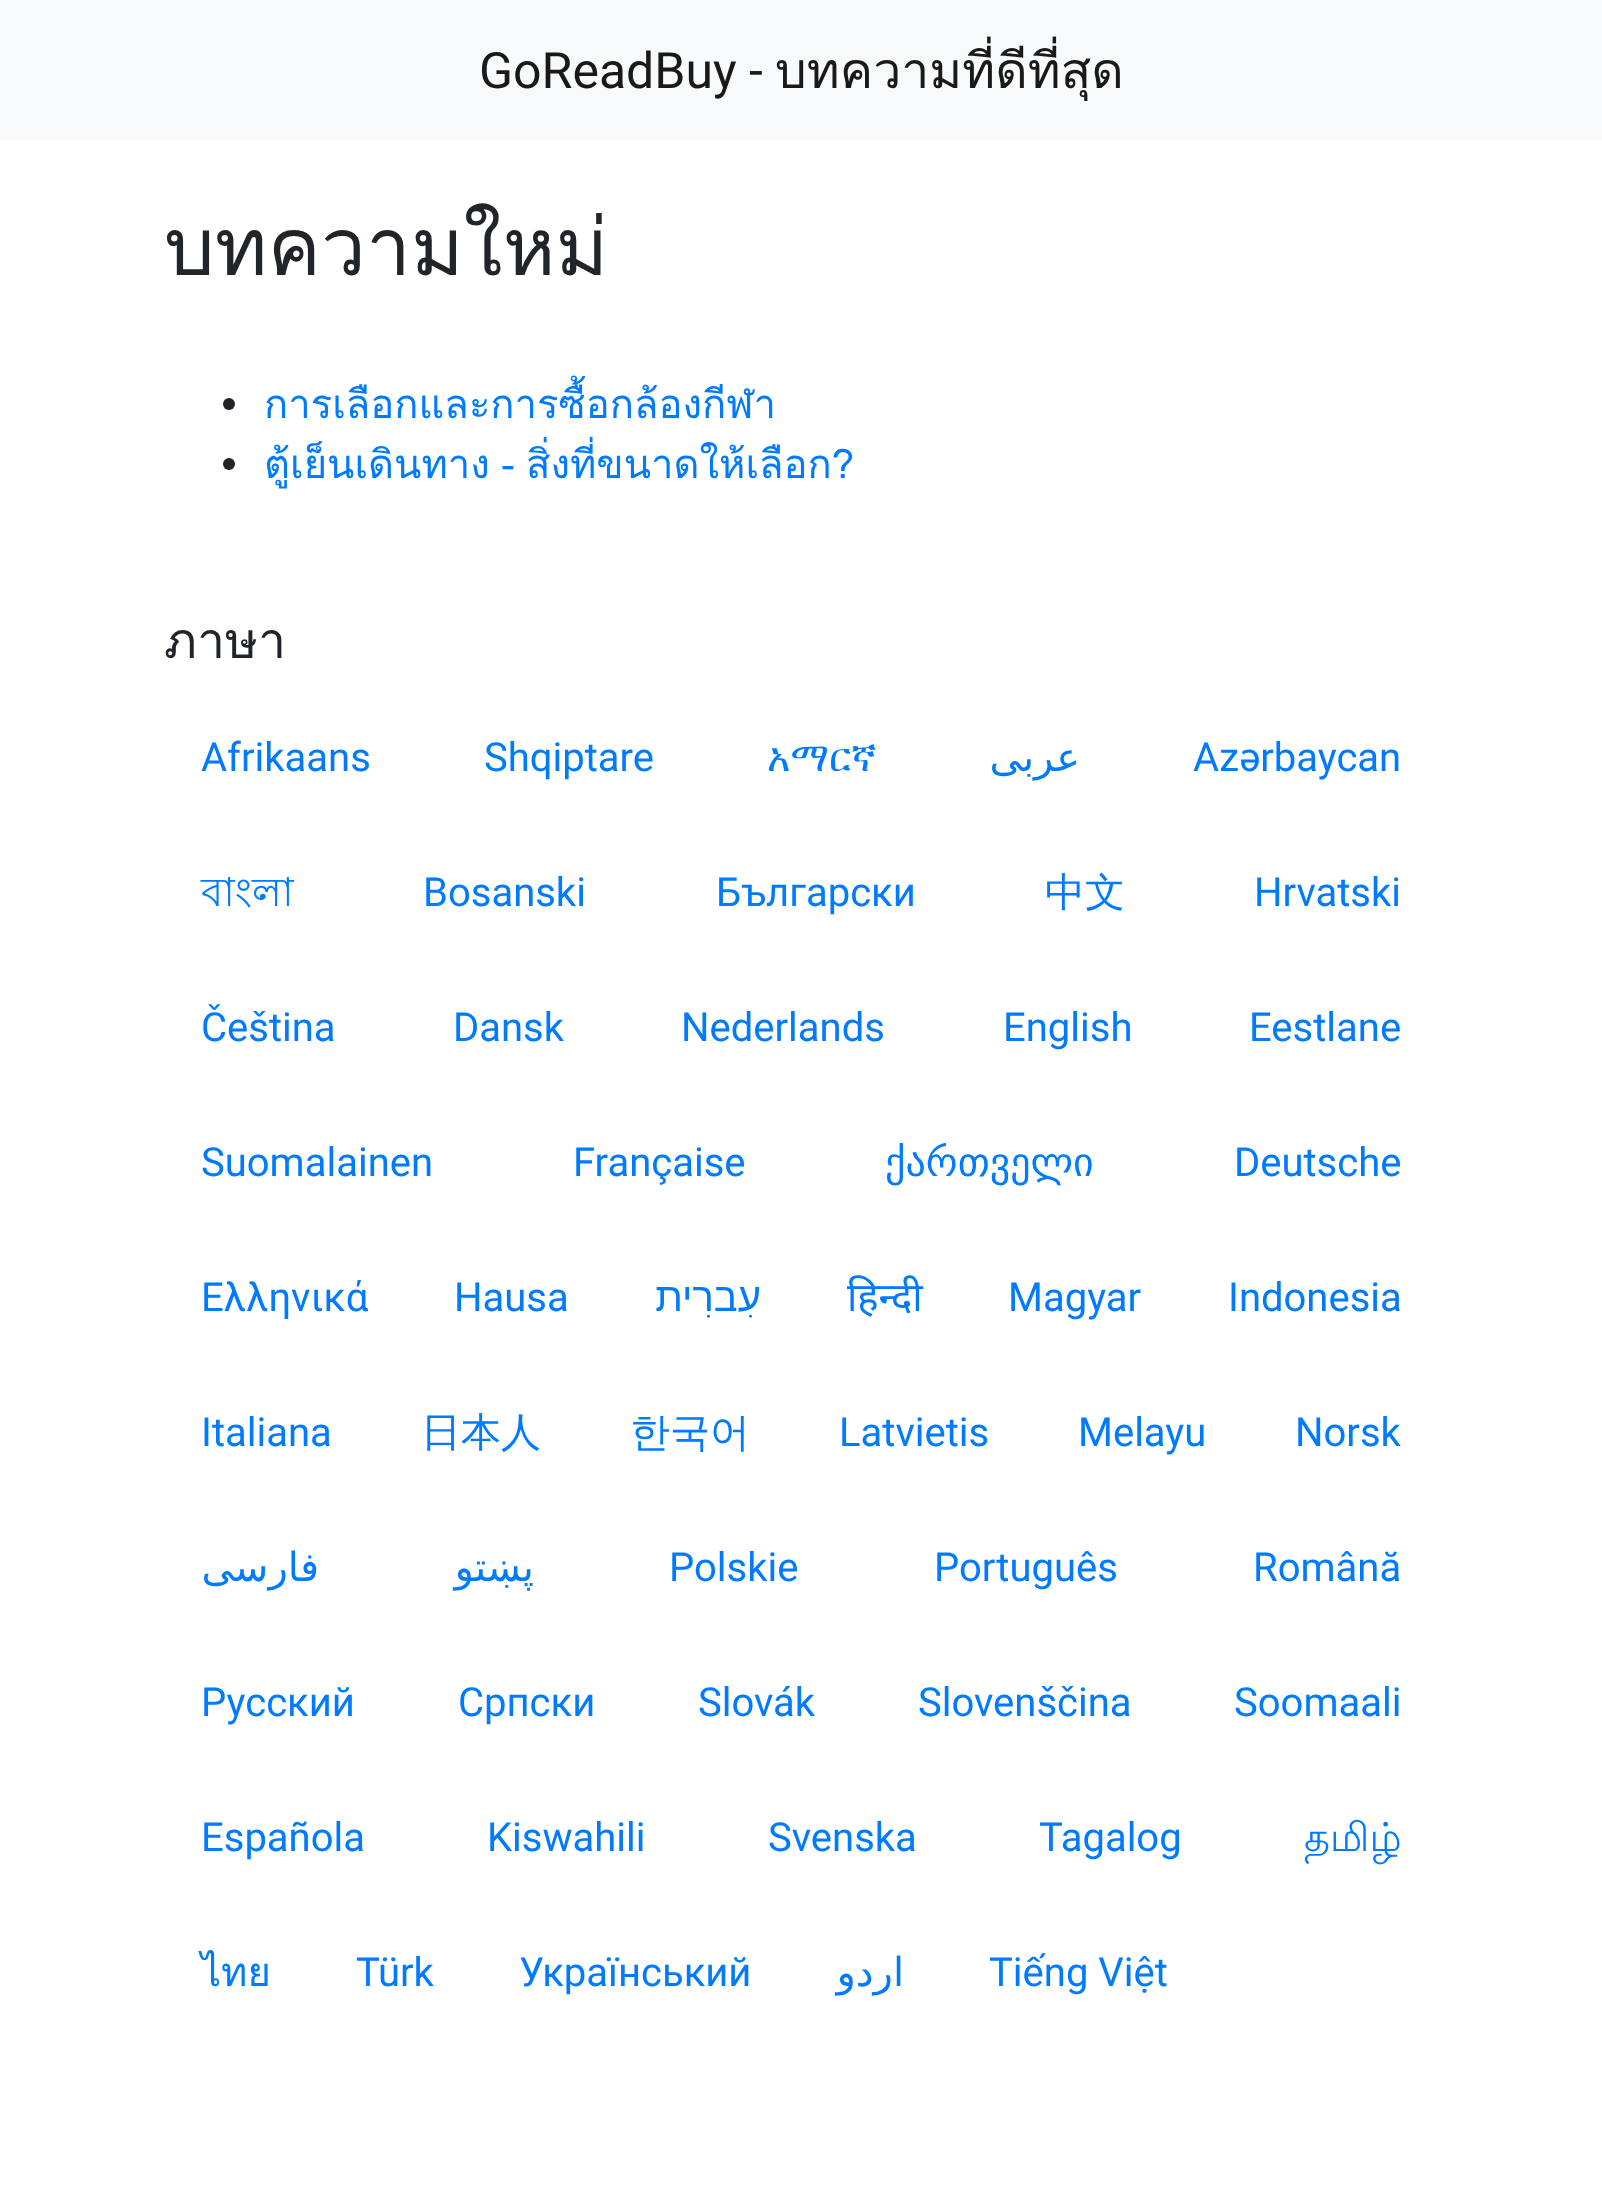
async function draw(canvas) {
	canvas.width = 1602;
	canvas.height = 2207;
	const c = canvas.getContext('2d');
	c.miterLimit = 4;
	c.fontKerning = 'normal';

	c.fillStyle = '#fff';
	c.fillRect(0, 0, 1602, 2207);
	c.fillStyle = '#f8f9fa';
	c.fillRect(0, 0, 1602, 140);
	c.font = '50px Roboto';
	c.fillStyle = '#191919';
	c.fillText('GoReadBuy -', 479, 88);
	c.font = '50px Loma';
	c.fillText('บทความที่ดีที่สุด', 775, 88);
	c.font = '80px Loma';
	c.fillStyle = '#212529';
	c.fillText('บทความใหม่', 164, 275);
	c.beginPath();
	c.arc(229, 404, 6, 0, 2 * Math.PI);
	c.fill();
	c.font = '40px Loma';
	c.fillStyle = '#007bff';
	c.fillText('การเลือกและการซื้อกล้องกีฬา', 264, 418);
	c.fillStyle = '#212529';
	c.beginPath();
	c.arc(229, 464, 6, 0, 2 * Math.PI);
	c.fill();
	c.wordSpacing = '-2px';
	c.fillStyle = '#007bff';
	c.fillText('ตู้เย็นเดินทาง - สิ่งที่ขนาดให้เลือก?', 264, 478);
	c.wordSpacing = '0px';
	c.font = '50px Loma';
	c.fillStyle = '#212529';
	c.fillText('ภาษา', 164, 658);
	c.font = '40px Roboto';
	c.fillStyle = '#007bff';
	c.fillText('Afrikaans', 201, 771);
	c.fillText('Shqiptare', 484, 771);
	c.font = '40px FreeSerif';
	c.fillText('አማርኛ', 767, 771);
	c.direction = 'rtl';
	c.font = '40px DejaVu Sans';
	c.fillText('عربى', 1080, 771);
	c.direction = 'ltr';
	c.font = '40px Roboto';
	c.fillText('Azərbaycan', 1193, 771);
	c.font = '40px Lohit Bengali';
	c.fillText('বাংলা', 201, 906);
	c.font = '40px Roboto';
	c.fillText('Bosanski', 423, 906);
	c.fillText('Български', 716, 906);
	c.font = '500 40px WenQuanYi Zen Hei';
	c.fillText('中文', 1045, 906);
	c.font = '40px Roboto';
	for (const [text, x, y] of [
		['Hrvatski', 1254, 906],
		['Čeština', 201, 1041],
		['Dansk', 453, 1041],
		['Nederlands', 681, 1041],
		['English', 1003, 1041],
		['Eestlane', 1249, 1041],
		['Suomalainen', 201, 1176],
		['Française', 573, 1176],
	]) {
		c.fillText(text, x, y);
	}
	c.font = '40px DejaVu Sans';
	c.fillText('ქართველი', 885, 1176);
	c.font = '40px Roboto';
	for (const [text, x, y] of [
		['Deutsche', 1234, 1176],
		['Ελληνικά', 201, 1311],
		['Hausa', 454, 1311],
	]) {
		c.fillText(text, x, y);
	}
	c.direction = 'rtl';
	c.font = '40px Liberation Sans';
	c.fillText('עִברִית', 761, 1311);
	c.direction = 'ltr';
	c.font = '40px Noto Sans';
	c.fillText('हिन्दी', 847, 1311);
	c.font = '40px Roboto';
	for (const [text, x, y] of [
		['Magyar', 1008, 1311],
		['Indonesia', 1228, 1311],
		['Italiana', 201, 1446],
	]) {
		c.fillText(text, x, y);
	}
	c.font = '500 40px WenQuanYi Zen Hei';
	c.fillText('日本人', 421, 1446);
	c.fillText('한국어', 630, 1446);
	c.font = '40px Roboto';
	for (const [text, x, y] of [
		['Latvietis', 839, 1446],
		['Melayu', 1078, 1446],
		['Norsk', 1295, 1446],
	]) {
		c.fillText(text, x, y);
	}
	c.direction = 'rtl';
	c.font = '40px DejaVu Sans';
	c.fillText('فارسی', 319, 1581);
	c.fillText('پښتو', 534, 1581);
	c.direction = 'ltr';
	c.font = '40px Roboto';
	for (const [text, x, y] of [
		['Polskie', 669, 1581],
		['Português', 934, 1581],
		['Română', 1253, 1581],
		['Русский', 201, 1716],
		['Српски', 458, 1716],
		['Slovák', 698, 1716],
		['Slovenščina', 918, 1716],
		['Soomaali', 1234, 1716],
		['Española', 201, 1851],
		['Kiswahili', 487, 1851],
		['Svenska', 768, 1851],
		['Tagalog', 1039, 1851],
	]) {
		c.fillText(text, x, y);
	}
	c.font = '40px Lohit Tamil';
	c.fillText('தமிழ்', 1304, 1851);
	c.font = '40px Loma';
	c.fillText('ไทย', 201, 1986);
	c.font = '40px Roboto';
	c.fillText('Türk', 356, 1986);
	c.fillText('Український', 519, 1986);
	c.direction = 'rtl';
	c.font = '40px DejaVu Sans';
	c.fillText('اردو', 904, 1986);
	c.direction = 'ltr';
	c.font = '40px Roboto';
	c.fillText('Tiếng Việt', 989, 1986);
}

draw(document.querySelector('canvas'));
